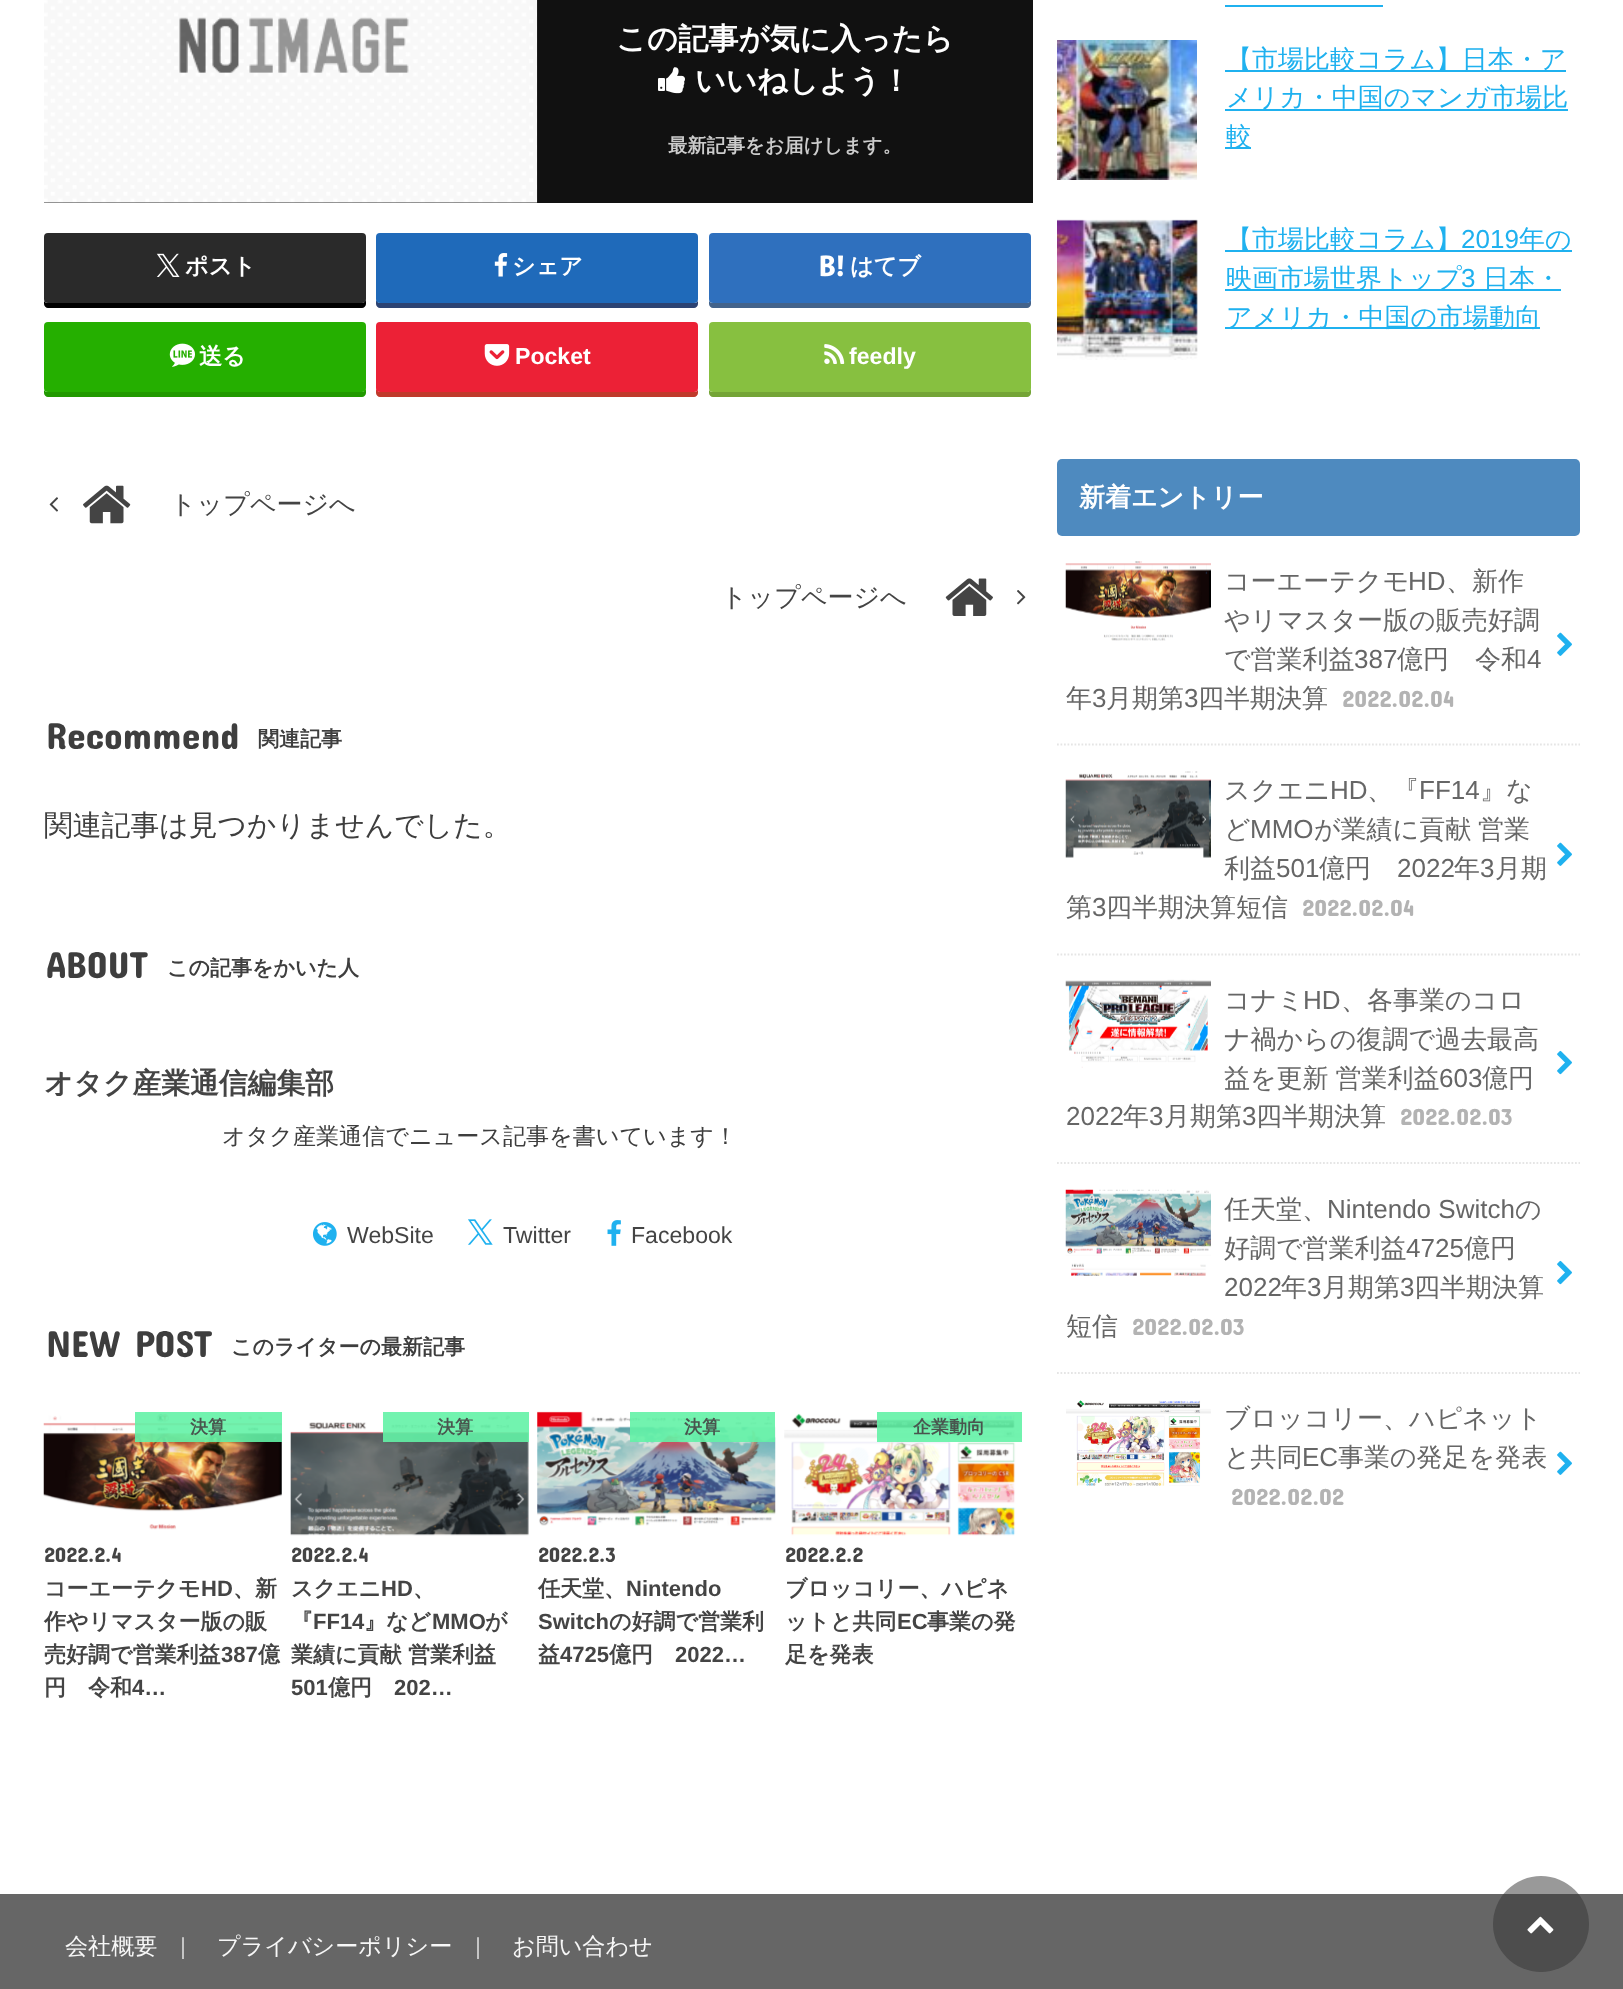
async function draw(canvas) {
	canvas.width = 1623;
	canvas.height = 1989;
	const c = canvas.getContext('2d');
	c.miterLimit = 4;
	c.fontKerning = 'normal';
	async function loadImage(src) {
		const img = new Image();
		img.src = src;
		await img.decode();
		return img;
	}

	c.fillStyle = '#fff';
	c.fillRect(0, 0, 1623, 1989);
	c.fillStyle = '#111';
	c.fillRect(44, 0, 989, 203);
	c.drawImage(await loadImage('img1.png'), 44, 0, 494, 203);
	c.font = 'bold 30.25px WenQuanYi Zen Hei';
	c.fillStyle = '#fff';
	c.fillText('この記事が気に入ったら', 616, 49);
	c.drawImage(await loadImage('img2.png'), 658, 67, 27, 27);
	c.fillText('いいねしよう！', 695, 91);
	c.font = 'bold 19.25px WenQuanYi Zen Hei';
	c.fillStyle = '#ccc';
	c.fillText('最新記事をお届けします。', 668, 152);
	c.fillStyle = '#000';
	c.beginPath();
	c.moveTo(44, 301);
	c.lineTo(44, 304);
	c.bezierCurveTo(44, 306, 46, 308, 48, 308);
	c.lineTo(362, 308);
	c.bezierCurveTo(364, 308, 366, 306, 366, 304);
	c.lineTo(366, 241);
	c.lineTo(366, 299);
	c.bezierCurveTo(366, 301, 364, 303, 362, 303);
	c.lineTo(47, 303);
	c.bezierCurveTo(46, 303, 45, 302, 44, 301);
	c.closePath();
	c.fill();
	c.fillStyle = '#2a2a2a';
	c.beginPath();
	c.roundRect(44, 233, 322, 70, 4);
	c.fill();
	c.drawImage(await loadImage('img3.png'), 156, 253, 24, 24);
	c.font = 'bold 23.1px WenQuanYi Zen Hei';
	c.fillStyle = '#fff';
	c.fillText('ポスト', 185, 274);
	c.fillStyle = '#2c4373';
	c.beginPath();
	c.moveTo(376, 241);
	c.lineTo(376, 304);
	c.bezierCurveTo(376, 306, 378, 308, 380, 308);
	c.lineTo(694, 308);
	c.bezierCurveTo(696, 308, 698, 306, 698, 304);
	c.lineTo(698, 301);
	c.bezierCurveTo(697, 302, 696, 303, 695, 303);
	c.lineTo(380, 303);
	c.bezierCurveTo(378, 303, 376, 301, 376, 299);
	c.closePath();
	c.fill();
	c.fillStyle = '#1f6aba';
	c.beginPath();
	c.roundRect(376, 233, 322, 70, 4);
	c.fill();
	c.drawImage(await loadImage('img4.png'), 494, 253, 14, 24);
	c.fillStyle = '#fff';
	c.fillText('シェア', 512, 274);
	c.fillStyle = '#43638b';
	c.beginPath();
	c.moveTo(709, 301);
	c.lineTo(709, 304);
	c.bezierCurveTo(709, 306, 711, 308, 713, 308);
	c.lineTo(1027, 308);
	c.bezierCurveTo(1029, 308, 1031, 306, 1031, 304);
	c.lineTo(1031, 241);
	c.lineTo(1031, 299);
	c.bezierCurveTo(1031, 301, 1029, 303, 1027, 303);
	c.lineTo(712, 303);
	c.bezierCurveTo(711, 303, 710, 302, 709, 301);
	c.closePath();
	c.fill();
	c.fillStyle = '#2f70be';
	c.beginPath();
	c.roundRect(709, 233, 322, 70, 4);
	c.fill();
	c.drawImage(await loadImage('img5.png'), 820, 255, 23, 22);
	c.fillStyle = '#fff';
	c.fillText('はてブ', 850, 274);
	c.fillStyle = '#219900';
	c.beginPath();
	c.moveTo(44, 390);
	c.lineTo(44, 393);
	c.bezierCurveTo(44, 395, 46, 397, 48, 397);
	c.lineTo(362, 397);
	c.bezierCurveTo(364, 397, 366, 395, 366, 393);
	c.lineTo(366, 330);
	c.lineTo(366, 388);
	c.bezierCurveTo(366, 390, 364, 392, 362, 392);
	c.lineTo(47, 392);
	c.bezierCurveTo(46, 392, 45, 391, 44, 390);
	c.closePath();
	c.fill();
	c.fillStyle = '#25af00';
	c.beginPath();
	c.roundRect(44, 322, 322, 70, 4);
	c.fill();
	c.drawImage(await loadImage('img6.png'), 169, 343, 26, 24);
	c.fillStyle = '#fff';
	c.fillText('送る', 199, 364);
	c.fillStyle = '#c0392b';
	c.beginPath();
	c.moveTo(376, 330);
	c.lineTo(376, 393);
	c.bezierCurveTo(376, 395, 378, 397, 380, 397);
	c.lineTo(694, 397);
	c.bezierCurveTo(696, 397, 698, 395, 698, 393);
	c.lineTo(698, 390);
	c.bezierCurveTo(697, 391, 696, 392, 695, 392);
	c.lineTo(380, 392);
	c.bezierCurveTo(378, 392, 376, 390, 376, 388);
	c.closePath();
	c.fill();
	c.fillStyle = '#ec2136';
	c.beginPath();
	c.roundRect(376, 322, 322, 70, 4);
	c.fill();
	c.drawImage(await loadImage('img7.png'), 484, 344, 26, 22);
	c.font = 'bold 23.1px Liberation Sans';
	c.fillStyle = '#fff';
	c.fillText('Pocket', 515, 364);
	c.fillStyle = '#74a436';
	c.beginPath();
	c.moveTo(709, 390);
	c.lineTo(709, 393);
	c.bezierCurveTo(709, 395, 711, 397, 713, 397);
	c.lineTo(1027, 397);
	c.bezierCurveTo(1029, 397, 1031, 395, 1031, 393);
	c.lineTo(1031, 330);
	c.lineTo(1031, 388);
	c.bezierCurveTo(1031, 390, 1029, 392, 1027, 392);
	c.lineTo(712, 392);
	c.bezierCurveTo(711, 392, 710, 391, 709, 390);
	c.closePath();
	c.fill();
	c.fillStyle = '#87c040';
	c.beginPath();
	c.roundRect(709, 322, 322, 70, 4);
	c.fill();
	c.drawImage(await loadImage('img8.png'), 824, 344, 21, 20);
	c.fillStyle = '#fff';
	c.fillText('feedly', 849, 364);
	c.drawImage(await loadImage('img9.png'), 49, 497, 9, 15);
	c.drawImage(await loadImage('img10.png'), 83, 485, 48, 39);
	c.font = '500 26px WenQuanYi Zen Hei';
	c.fillStyle = '#444';
	c.fillText('トップページへ', 170, 513);
	c.fillText('トップページへ', 721, 606);
	c.drawImage(await loadImage('img11.png'), 945, 578, 48, 38);
	c.drawImage(await loadImage('img12.png'), 1017, 590, 9, 15);
	c.font = '37.75px Concert One';
	c.fillStyle = '#3e3e3e';
	c.fillText('Recommend', 46, 749);
	c.font = 'bold 21px WenQuanYi Zen Hei';
	c.fillText('関連記事', 258, 746);
	c.font = '500 28.8px WenQuanYi Zen Hei';
	c.fillText('関連記事は見つかりませんでした。', 44, 835);
	c.font = '37.75px Concert One';
	c.fillText('ABOUT', 46, 978);
	c.font = 'bold 21px WenQuanYi Zen Hei';
	c.fillText('この記事をかいた人', 167, 975);
	c.font = 'bold 28.8px WenQuanYi Zen Hei';
	c.fillStyle = '#444';
	c.fillText('オタク産業通信編集部', 44, 1093);
	c.font = '500 23.1px WenQuanYi Zen Hei';
	c.fillStyle = '#3e3e3e';
	c.fillText('オタク産業通信でニュース記事を書いています！', 222, 1144);
	c.drawImage(await loadImage('img13.png'), 313, 1222, 24, 24);
	c.font = '23.1px Liberation Sans';
	c.fillStyle = '#444';
	c.fillText('WebSite', 347, 1243);
	c.drawImage(await loadImage('img14.png'), 468, 1219, 25, 26);
	c.fillText('Twitter', 503, 1243);
	c.drawImage(await loadImage('img15.png'), 607, 1220, 14, 26);
	c.fillText('Facebook', 631, 1243);
	c.font = '37.75px Concert One';
	c.fillStyle = '#3e3e3e';
	c.fillText('NEW POST', 46, 1357);
	c.font = 'bold 21px WenQuanYi Zen Hei';
	c.fillText('このライターの最新記事', 231, 1354);
	c.drawImage(await loadImage('img16.png'), 43, 1413, 239, 117);
	c.fillStyle = '#63f2a6e6';
	c.fillRect(135, 1412, 147, 30);
	c.font = 'bold 18px WenQuanYi Zen Hei';
	c.fillStyle = '#49554e';
	c.fillText('決算', 190, 1433);
	c.font = '21px Concert One';
	c.fillStyle = '#444';
	c.fillText('2022.2.4', 44, 1562);
	c.font = 'bold 22px WenQuanYi Zen Hei';
	c.fillText('コーエーテクモ', 44, 1596);
	c.font = 'bold 22px Liberation Sans';
	c.fillText('HD', 201, 1596);
	c.font = 'bold 22px WenQuanYi Zen Hei';
	for (const [text, x, y] of [
		['、新', 233, 1596],
		['作やリマスター版の販', 44, 1629],
		['売好調で営業利益', 44, 1662],
	]) {
		c.fillText(text, x, y);
	}
	c.font = 'bold 22px Liberation Sans';
	c.fillText('387', 221, 1662);
	c.font = 'bold 22px WenQuanYi Zen Hei';
	c.fillText('億', 258, 1662);
	c.fillText('円　令和', 44, 1695);
	c.font = 'bold 22px Liberation Sans';
	c.fillText('4…', 132, 1695);
	c.drawImage(await loadImage('img17.png'), 290, 1415, 239, 121);
	c.fillStyle = '#63f2a6e6';
	c.fillRect(383, 1412, 146, 30);
	c.font = 'bold 18px WenQuanYi Zen Hei';
	c.fillStyle = '#49554e';
	c.fillText('決算', 437, 1433);
	c.font = '21px Concert One';
	c.fillStyle = '#444';
	c.fillText('2022.2.4', 291, 1562);
	c.font = 'bold 22px WenQuanYi Zen Hei';
	c.fillText('スクエニ', 291, 1596);
	c.font = 'bold 22px Liberation Sans';
	c.fillText('HD', 381, 1596);
	c.font = 'bold 22px WenQuanYi Zen Hei';
	c.fillText('、', 413, 1596);
	c.fillText('『', 291, 1629);
	c.font = 'bold 22px Liberation Sans';
	c.fillText('FF14', 313, 1629);
	c.font = 'bold 22px WenQuanYi Zen Hei';
	c.fillText('』など', 364, 1629);
	c.font = 'bold 22px Liberation Sans';
	c.fillText('MMO', 432, 1629);
	c.font = 'bold 22px WenQuanYi Zen Hei';
	c.fillText('が', 485, 1629);
	c.fillText('業績に貢献 営業利益', 291, 1662);
	c.font = 'bold 22px Liberation Sans';
	c.fillText('501', 291, 1695);
	c.font = 'bold 22px WenQuanYi Zen Hei';
	c.fillText('億円', 328, 1695);
	c.font = 'bold 22px Liberation Sans';
	c.fillText('202…', 394, 1695);
	c.drawImage(await loadImage('img18.png'), 537, 1411, 239, 115);
	c.fillStyle = '#63f2a6e6';
	c.fillRect(630, 1412, 145, 30);
	c.font = 'bold 18px WenQuanYi Zen Hei';
	c.fillStyle = '#49554e';
	c.fillText('決算', 684, 1433);
	c.font = '21px Concert One';
	c.fillStyle = '#444';
	c.fillText('2022.2.3', 538, 1562);
	c.font = 'bold 22px WenQuanYi Zen Hei';
	c.fillText('任天堂、', 538, 1596);
	c.font = 'bold 22px Liberation Sans';
	c.fillText('Nintendo', 626, 1596);
	c.fillText('Switch', 538, 1629);
	c.font = 'bold 22px WenQuanYi Zen Hei';
	c.fillText('の好調で営業利', 609, 1629);
	c.fillText('益', 538, 1662);
	c.font = 'bold 22px Liberation Sans';
	c.fillText('4725', 560, 1662);
	c.font = 'bold 22px WenQuanYi Zen Hei';
	c.fillText('億円', 609, 1662);
	c.font = 'bold 22px Liberation Sans';
	c.fillText('2022…', 675, 1662);
	c.drawImage(await loadImage('img19.png'), 784, 1413, 238, 123);
	c.fillStyle = '#63f2a6e6';
	c.fillRect(877, 1412, 145, 30);
	c.font = 'bold 18px WenQuanYi Zen Hei';
	c.fillStyle = '#49554e';
	c.fillText('企業動向', 913, 1433);
	c.font = '21px Concert One';
	c.fillStyle = '#444';
	c.fillText('2022.2.2', 785, 1562);
	c.font = 'bold 22px WenQuanYi Zen Hei';
	c.fillText('ブロッコリー、ハピネ', 785, 1596);
	c.fillText('ットと共同', 785, 1629);
	c.font = 'bold 22px Liberation Sans';
	c.fillText('EC', 897, 1629);
	c.font = 'bold 22px WenQuanYi Zen Hei';
	c.fillText('事業の発', 927, 1629);
	c.fillText('足を発表', 785, 1662);
	c.fillStyle = '#1fb1ef';
	c.fillRect(1225, 5, 158, 2);
	c.drawImage(await loadImage('img20.png'), 1057, 40, 140, 140);
	c.fillRect(1225, 70, 341, 2);
	c.font = '500 26px WenQuanYi Zen Hei';
	c.fillText('【市場比較コラム】日本・ア', 1226, 68);
	c.fillRect(1225, 109, 343, 2);
	c.fillText('メリカ・中国のマンガ市場比', 1226, 106);
	c.fillRect(1225, 147, 26, 2);
	c.fillText('較', 1226, 145);
	c.drawImage(await loadImage('img21.png'), 1057, 219, 141, 141);
	c.fillRect(1225, 250, 347, 2);
	c.fillText('【市場比較コラム】', 1226, 248);
	c.font = '26px Liberation Sans';
	c.fillText('2019', 1461, 248);
	c.font = '500 26px WenQuanYi Zen Hei';
	c.fillText('年の', 1519, 248);
	c.fillRect(1225, 289, 336, 2);
	c.fillText('映画市場世界トップ', 1226, 287);
	c.font = '26px Liberation Sans';
	c.fillText('3', 1461, 287);
	c.font = '500 26px WenQuanYi Zen Hei';
	c.fillText('日本・', 1483, 287);
	c.fillRect(1225, 327, 315, 2);
	c.fillText('アメリカ・中国の市場動向', 1226, 326);
	c.fillStyle = '#4e8abf';
	c.beginPath();
	c.roundRect(1057, 459, 523, 77, 5);
	c.fill();
	c.font = 'bold 26px WenQuanYi Zen Hei';
	c.fillStyle = '#fff';
	c.fillText('新着エントリー', 1079, 506);
	c.beginPath();
	c.moveTo(1057, 744.5);
	c.lineTo(1580, 744.5);
	c.strokeStyle = '#e5e5e5';
	c.lineWidth = 1.8;
	c.setLineDash([1.75, 1.75]);
	c.stroke();
	c.drawImage(await loadImage('img22.png'), 1065, 561, 146, 80);
	c.font = '500 26px WenQuanYi Zen Hei';
	c.fillStyle = '#666';
	c.fillText('コーエーテクモ', 1224, 590);
	c.font = '26px Liberation Sans';
	c.fillText('HD', 1408, 590);
	c.font = '500 26px WenQuanYi Zen Hei';
	for (const [text, x, y] of [
		['、新作', 1446, 590],
		['やリマスター版の販売好調', 1224, 629],
		['で営業利益', 1224, 668],
	]) {
		c.fillText(text, x, y);
	}
	c.font = '26px Liberation Sans';
	c.fillText('387', 1354, 668);
	c.font = '500 26px WenQuanYi Zen Hei';
	c.fillText('億円　令和', 1397, 668);
	c.font = '26px Liberation Sans';
	c.fillText('4', 1527, 668);
	c.drawImage(await loadImage('img23.png'), 1557, 632, 15, 24);
	c.font = '500 26px WenQuanYi Zen Hei';
	c.fillText('年', 1066, 707);
	c.font = '26px Liberation Sans';
	c.fillText('3', 1092, 707);
	c.font = '500 26px WenQuanYi Zen Hei';
	c.fillText('月期第', 1106, 707);
	c.font = '26px Liberation Sans';
	c.fillText('3', 1184, 707);
	c.font = '500 26px WenQuanYi Zen Hei';
	c.fillText('四半期決算', 1198, 707);
	c.font = '23.5px Concert One';
	c.fillStyle = '#b3b3b3';
	c.fillText('2022.02.04', 1342, 707);
	c.beginPath();
	c.moveTo(1057, 954.5);
	c.lineTo(1580, 954.5);
	c.stroke();
	c.drawImage(await loadImage('img24.png'), 1065, 771, 146, 87);
	c.font = '500 26px WenQuanYi Zen Hei';
	c.fillStyle = '#666';
	c.fillText('スクエニ', 1224, 799);
	c.font = '26px Liberation Sans';
	c.fillText('HD', 1330, 799);
	c.font = '500 26px WenQuanYi Zen Hei';
	c.fillText('、『', 1367, 799);
	c.font = '26px Liberation Sans';
	c.fillText('FF14', 1419, 799);
	c.font = '500 26px WenQuanYi Zen Hei';
	c.fillText('』な', 1480, 799);
	c.fillText('ど', 1224, 838);
	c.font = '26px Liberation Sans';
	c.fillText('MMO', 1250, 838);
	c.wordSpacing = '-1px';
	c.font = '500 26px WenQuanYi Zen Hei';
	c.fillText('が業績に貢献 営業', 1314, 838);
	c.wordSpacing = '0px';
	c.fillText('利益', 1224, 877);
	c.font = '26px Liberation Sans';
	c.fillText('501', 1276, 877);
	c.font = '500 26px WenQuanYi Zen Hei';
	c.fillText('億円', 1319, 877);
	c.font = '26px Liberation Sans';
	c.fillText('2022', 1397, 877);
	c.font = '500 26px WenQuanYi Zen Hei';
	c.fillText('年', 1454, 877);
	c.font = '26px Liberation Sans';
	c.fillText('3', 1480, 877);
	c.font = '500 26px WenQuanYi Zen Hei';
	c.fillText('月期', 1495, 877);
	c.drawImage(await loadImage('img23.png'), 1557, 842, 15, 24);
	c.fillText('第', 1066, 916);
	c.font = '26px Liberation Sans';
	c.fillText('3', 1092, 916);
	c.font = '500 26px WenQuanYi Zen Hei';
	c.fillText('四半期決算短信', 1106, 916);
	c.font = '23.5px Concert One';
	c.fillStyle = '#b3b3b3';
	c.fillText('2022.02.04', 1302, 916);
	c.beginPath();
	c.moveTo(1057, 1163);
	c.lineTo(1580, 1163);
	c.stroke();
	c.drawImage(await loadImage('img25.png'), 1065, 979, 146, 89);
	c.font = '500 26px WenQuanYi Zen Hei';
	c.fillStyle = '#666';
	c.fillText('コナミ', 1224, 1009);
	c.font = '26px Liberation Sans';
	c.fillText('HD', 1303, 1009);
	c.font = '500 26px WenQuanYi Zen Hei';
	c.fillText('、各事業のコロ', 1341, 1009);
	c.fillText('ナ禍からの復調で過去最高', 1224, 1048);
	c.drawImage(await loadImage('img26.png'), 1557, 1050, 15, 25);
	c.wordSpacing = '-1px';
	c.fillText('益を更新 営業利益', 1224, 1087);
	c.wordSpacing = '0px';
	c.font = '26px Liberation Sans';
	c.fillText('603', 1439, 1087);
	c.font = '500 26px WenQuanYi Zen Hei';
	c.fillText('億円', 1482, 1087);
	c.font = '26px Liberation Sans';
	c.fillText('2022', 1066, 1125);
	c.font = '500 26px WenQuanYi Zen Hei';
	c.fillText('年', 1123, 1125);
	c.font = '26px Liberation Sans';
	c.fillText('3', 1149, 1125);
	c.font = '500 26px WenQuanYi Zen Hei';
	c.fillText('月期第', 1164, 1125);
	c.font = '26px Liberation Sans';
	c.fillText('3', 1242, 1125);
	c.font = '500 26px WenQuanYi Zen Hei';
	c.fillText('四半期決算', 1256, 1125);
	c.font = '23.5px Concert One';
	c.fillStyle = '#b3b3b3';
	c.fillText('2022.02.03', 1400, 1125);
	c.beginPath();
	c.moveTo(1057, 1373);
	c.lineTo(1580, 1373);
	c.stroke();
	c.drawImage(await loadImage('img27.png'), 1065, 1189, 146, 87);
	c.font = '500 26px WenQuanYi Zen Hei';
	c.fillStyle = '#666';
	c.fillText('任天堂、', 1224, 1218);
	c.font = '26px Liberation Sans';
	c.fillText('Nintendo Switch', 1327, 1218);
	c.font = '500 26px WenQuanYi Zen Hei';
	c.fillText('の', 1515, 1218);
	c.fillText('好調で営業利益', 1224, 1257);
	c.font = '26px Liberation Sans';
	c.fillText('4725', 1406, 1257);
	c.font = '500 26px WenQuanYi Zen Hei';
	c.fillText('億円', 1464, 1257);
	c.font = '26px Liberation Sans';
	c.fillText('2022', 1224, 1296);
	c.font = '500 26px WenQuanYi Zen Hei';
	c.fillText('年', 1281, 1296);
	c.font = '26px Liberation Sans';
	c.fillText('3', 1307, 1296);
	c.font = '500 26px WenQuanYi Zen Hei';
	c.fillText('月期第', 1322, 1296);
	c.font = '26px Liberation Sans';
	c.fillText('3', 1400, 1296);
	c.font = '500 26px WenQuanYi Zen Hei';
	c.fillText('四半期決算', 1414, 1296);
	c.drawImage(await loadImage('img26.png'), 1557, 1260, 15, 25);
	c.fillText('短信', 1066, 1335);
	c.font = '23.5px Concert One';
	c.fillStyle = '#b3b3b3';
	c.fillText('2022.02.03', 1132, 1335);
	c.drawImage(await loadImage('img28.png'), 1066, 1400, 145, 86);
	c.font = '500 26px WenQuanYi Zen Hei';
	c.fillStyle = '#666';
	c.fillText('ブロッコリー、ハピネット', 1224, 1427);
	c.fillText('と共同', 1224, 1466);
	c.font = '26px Liberation Sans';
	c.fillText('EC', 1302, 1466);
	c.font = '500 26px WenQuanYi Zen Hei';
	c.fillText('事業の発足を発表', 1338, 1466);
	c.drawImage(await loadImage('img23.png'), 1557, 1451, 15, 24);
	c.font = '23.5px Concert One';
	c.fillStyle = '#b3b3b3';
	c.fillText('2022.02.02', 1231, 1505);
	c.fillStyle = '#666';
	c.fillRect(0, 1894, 1623, 95);
	c.font = '500 23.1px WenQuanYi Zen Hei';
	c.fillStyle = '#f7f7f7';
	c.fillText('会社概要', 65, 1954);
	c.font = '23.1px Liberation Sans';
	c.fillStyle = '#ccc';
	c.fillText('|', 180, 1954);
	c.font = '500 23.1px WenQuanYi Zen Hei';
	c.fillStyle = '#f7f7f7';
	c.fillText('プライバシーポリシー', 217, 1954);
	c.font = '23.1px Liberation Sans';
	c.fillStyle = '#ccc';
	c.fillText('|', 475, 1954);
	c.font = '500 23.1px WenQuanYi Zen Hei';
	c.fillStyle = '#f7f7f7';
	c.fillText('お問い合わせ', 512, 1954);
	c.fillStyle = '#33333380';
	c.beginPath();
	c.arc(1541, 1924, 48, 0, 2 * Math.PI);
	c.fill();
	c.drawImage(await loadImage('img29.png'), 1527, 1916, 27, 18);
}

draw(document.querySelector('canvas'));
